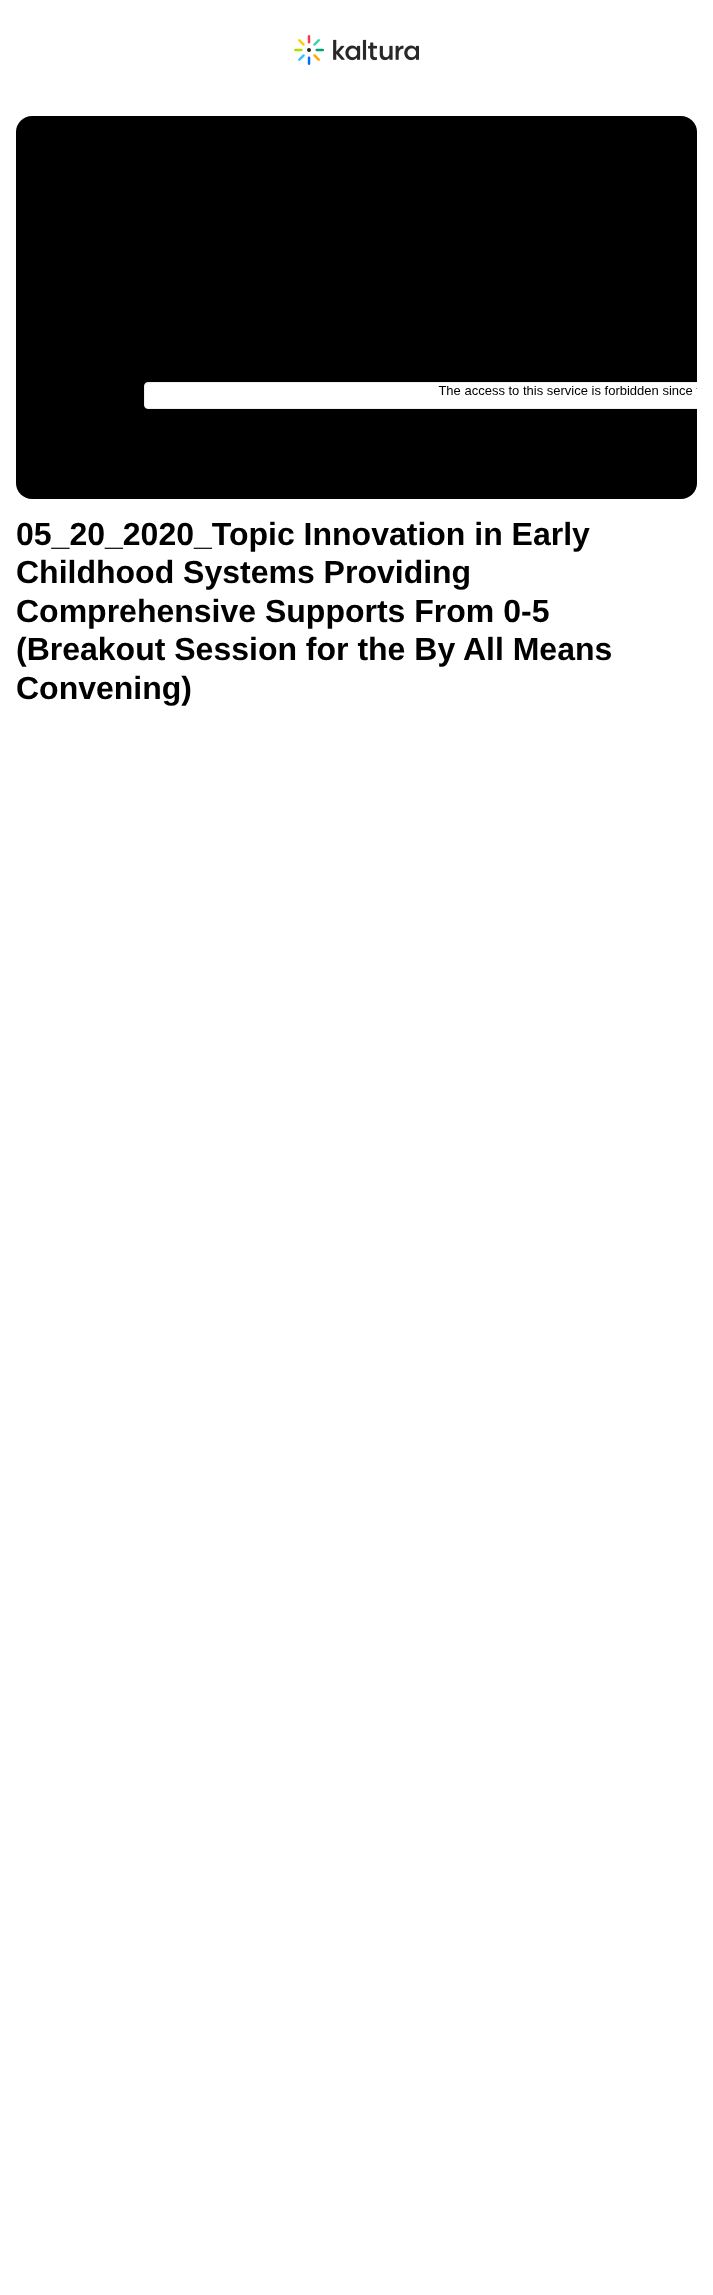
async function draw(canvas) {
	canvas.width = 713;
	canvas.height = 2295;
	const c = canvas.getContext('2d');
	c.miterLimit = 4;
	c.fontKerning = 'normal';
	async function loadImage(src) {
		const img = new Image();
		img.src = src;
		await img.decode();
		return img;
	}

	c.fillStyle = '#fff';
	c.fillRect(0, 0, 713, 2295);
	c.drawImage(await loadImage('img1.png'), 294, 35, 125, 30);
	c.drawImage(await loadImage('img2.png'), 16, 116, 681, 383);
	c.font = 'bold 32px Liberation Sans';
	c.fillStyle = '#000';
	for (const [text, x, y] of [
		['05_20_2020_Topic Innovation in Early', 16, 545],
		['Childhood Systems Providing', 16, 583],
		['Comprehensive Supports From 0-5', 16, 622],
		['(Breakout Session for the By All Means', 16, 660],
		['Convening)', 16, 699],
	]) {
		c.fillText(text, x, y);
	}
}

draw(document.querySelector('canvas'));
